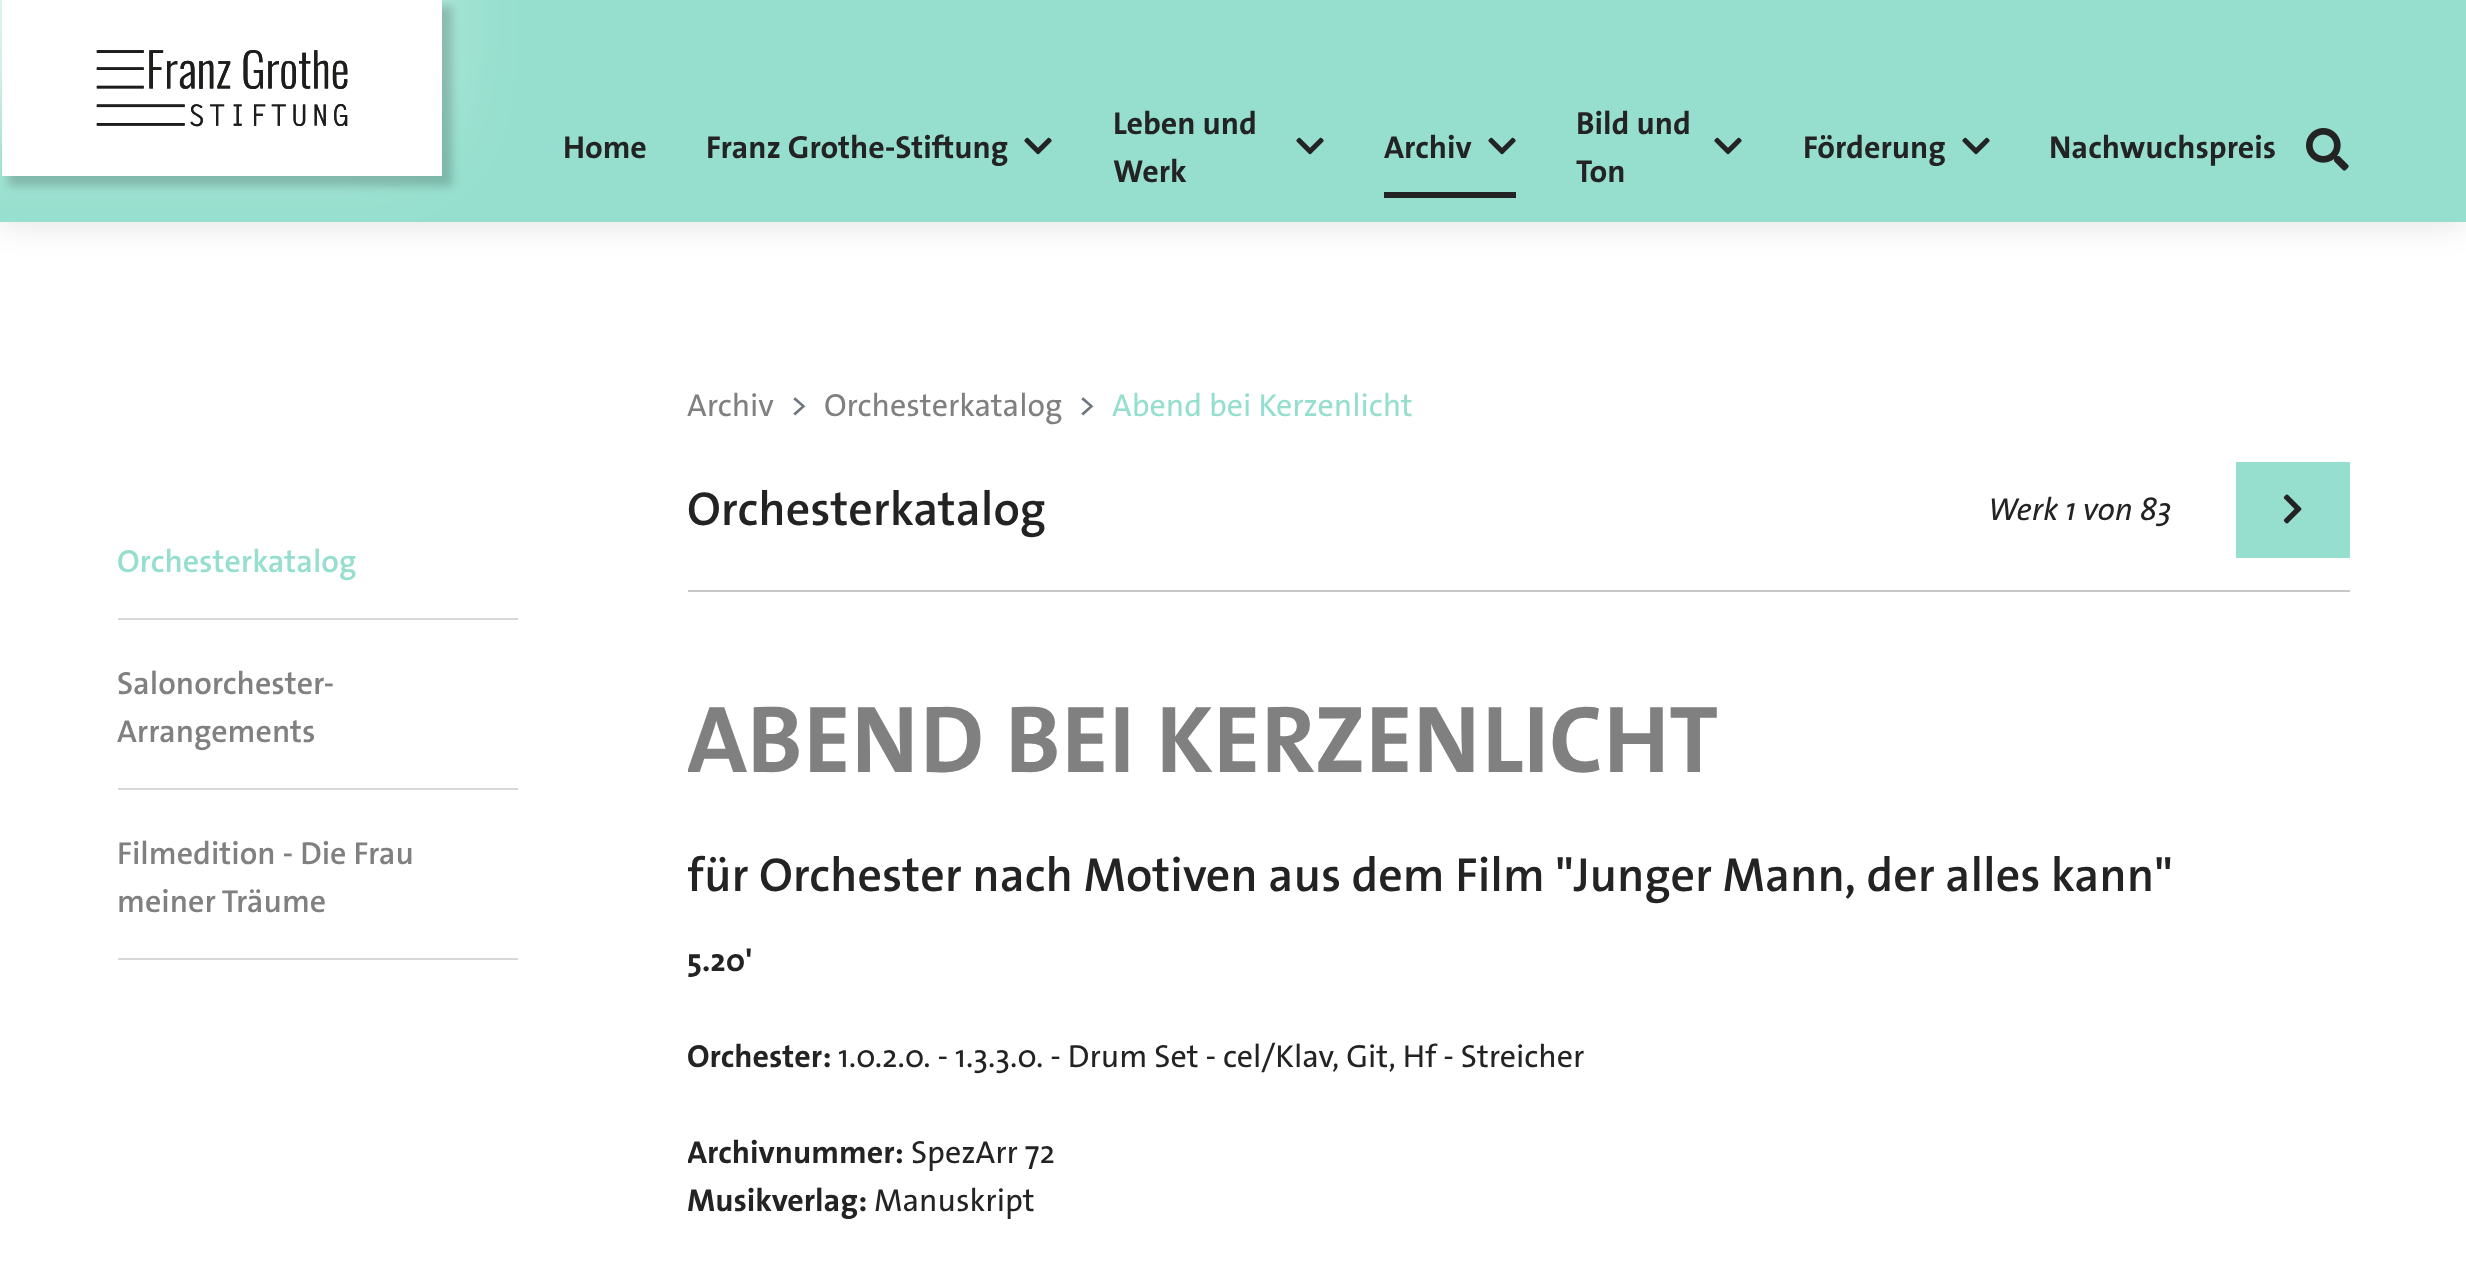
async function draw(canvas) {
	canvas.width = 2466;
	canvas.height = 1287;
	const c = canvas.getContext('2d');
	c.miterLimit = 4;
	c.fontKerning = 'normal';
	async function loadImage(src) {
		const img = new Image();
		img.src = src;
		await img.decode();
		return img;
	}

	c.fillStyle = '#fff';
	c.fillRect(0, 0, 2466, 1287);
	c.fillStyle = '#0000001a';
	c.filter = 'blur(15px)';
	c.beginPath();
	c.rect(0, 4, 2466, 222);
	c.fill();
	c.filter = 'none';
	c.fillStyle = '#96dfce';
	c.fillRect(0, 0, 2466, 222);
	c.fillStyle = '#ffffffa8';
	c.filter = 'blur(51px)';
	c.beginPath();
	c.rect(-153, -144, 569, 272);
	c.fill();
	c.filter = 'none';
	c.fillStyle = '#0000002e';
	c.filter = 'blur(4px)';
	c.beginPath();
	c.rect(8, 6, 444, 180);
	c.fill();
	c.filter = 'none';
	c.fillStyle = '#fff';
	c.fillRect(2, 0, 440, 176);
	c.drawImage(await loadImage('img1.png'), 96, 50, 252, 77);
	c.font = 'bold 32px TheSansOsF';
	c.fillStyle = '#232323';
	c.fillText('Home', 563, 158);
	c.fillText('Franz Grothe-Stiftung', 706, 158);
	c.drawImage(await loadImage('img2.png'), 1024, 137, 28, 18);
	c.fillText('Leben und', 1113, 134);
	c.fillText('Werk', 1113, 182);
	c.drawImage(await loadImage('img2.png'), 1296, 137, 28, 18);
	c.fillText('Archiv', 1384, 158);
	c.drawImage(await loadImage('img2.png'), 1488, 137, 28, 18);
	c.fillRect(1384, 192, 132, 6);
	c.fillText('Bild und', 1576, 134);
	c.fillText('Ton', 1576, 182);
	c.drawImage(await loadImage('img2.png'), 1714, 137, 28, 18);
	c.fillText('Förderung', 1803, 158);
	c.drawImage(await loadImage('img2.png'), 1962, 137, 28, 18);
	c.fillText('Nachwuchspreis', 2049, 158);
	c.drawImage(await loadImage('img3.png'), 2306, 128, 43, 43);
	c.fillStyle = '#d8d8d8';
	c.fillRect(118, 618, 400, 2);
	c.font = '600 32px TheSansOsF';
	c.fillStyle = '#96dfce';
	c.fillText('Orchesterkatalog', 117, 572);
	c.fillStyle = '#d8d8d8';
	c.fillRect(118, 788, 400, 2);
	c.fillStyle = '#808080';
	c.fillText('Salonorchester-', 117, 694);
	c.fillText('Arrangements', 117, 742);
	c.fillStyle = '#d8d8d8';
	c.fillRect(118, 958, 400, 2);
	c.fillStyle = '#808080';
	c.fillText('Filmedition - Die Frau', 117, 864);
	c.fillText('meiner Träume', 117, 912);
	c.font = '500 32px TheSansOsF';
	c.fillText('Archiv', 687, 416);
	c.fillStyle = '#6c757d';
	c.fillText('>', 790, 416);
	c.fillStyle = '#808080';
	c.fillText('Orchesterkatalog', 824, 416);
	c.fillStyle = '#6c757d';
	c.fillText('>', 1078, 416);
	c.fillStyle = '#96dfce';
	c.fillText('Abend bei Kerzenlicht', 1112, 416);
	c.font = '600 48px TheSansOsF';
	c.fillStyle = '#232323';
	c.fillText('Orchesterkatalog', 687, 525);
	c.font = 'italic 500 32px TheSansOsF';
	c.fillText('Werk 1 von 83', 1988, 520);
	c.fillStyle = '#96dfce';
	c.fillRect(2236, 462, 114, 96);
	c.drawImage(await loadImage('img4.png'), 2283, 494, 19, 30);
	c.fillStyle = '#c8c8c8';
	c.fillRect(688, 590, 1662, 2);
	c.save();
	c.beginPath();
	c.rect(688, 624, 1662, 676);
	c.clip();
	c.font = 'bold 96px TheSansOsF';
	c.fillStyle = '#808080';
	c.fillText('ABEND BEI KERZENLICHT', 687, 772);
	c.font = '600 48px TheSansOsF';
	c.fillStyle = '#232323';
	c.fillText('für Orchester nach Motiven aus dem Film "Junger Mann, der alles kann"', 687, 891);
	c.restore();
	c.font = 'bold 32px TheSansOsF';
	c.fillStyle = '#232323';
	c.fillText('5.20\'', 687, 971);
	c.fillText('Orchester:', 687, 1067);
	c.font = '500 32px TheSansOsF';
	c.fillText('1.0.2.0. - 1.3.3.0. - Drum Set - cel/Klav, Git, Hf - Streicher', 838, 1067);
	c.save();
	c.beginPath();
	c.rect(688, 624, 1662, 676);
	c.clip();
	c.font = 'bold 32px TheSansOsF';
	c.fillText('Archivnummer:', 687, 1163);
	c.restore();
	c.fillText('SpezArr 72', 911, 1163);
	c.font = 'bold 32px TheSansOsF';
	c.fillText('Musikverlag:', 687, 1211);
	c.font = '500 32px TheSansOsF';
	c.fillText('Manuskript', 874, 1211);
}

draw(document.querySelector('canvas'));
